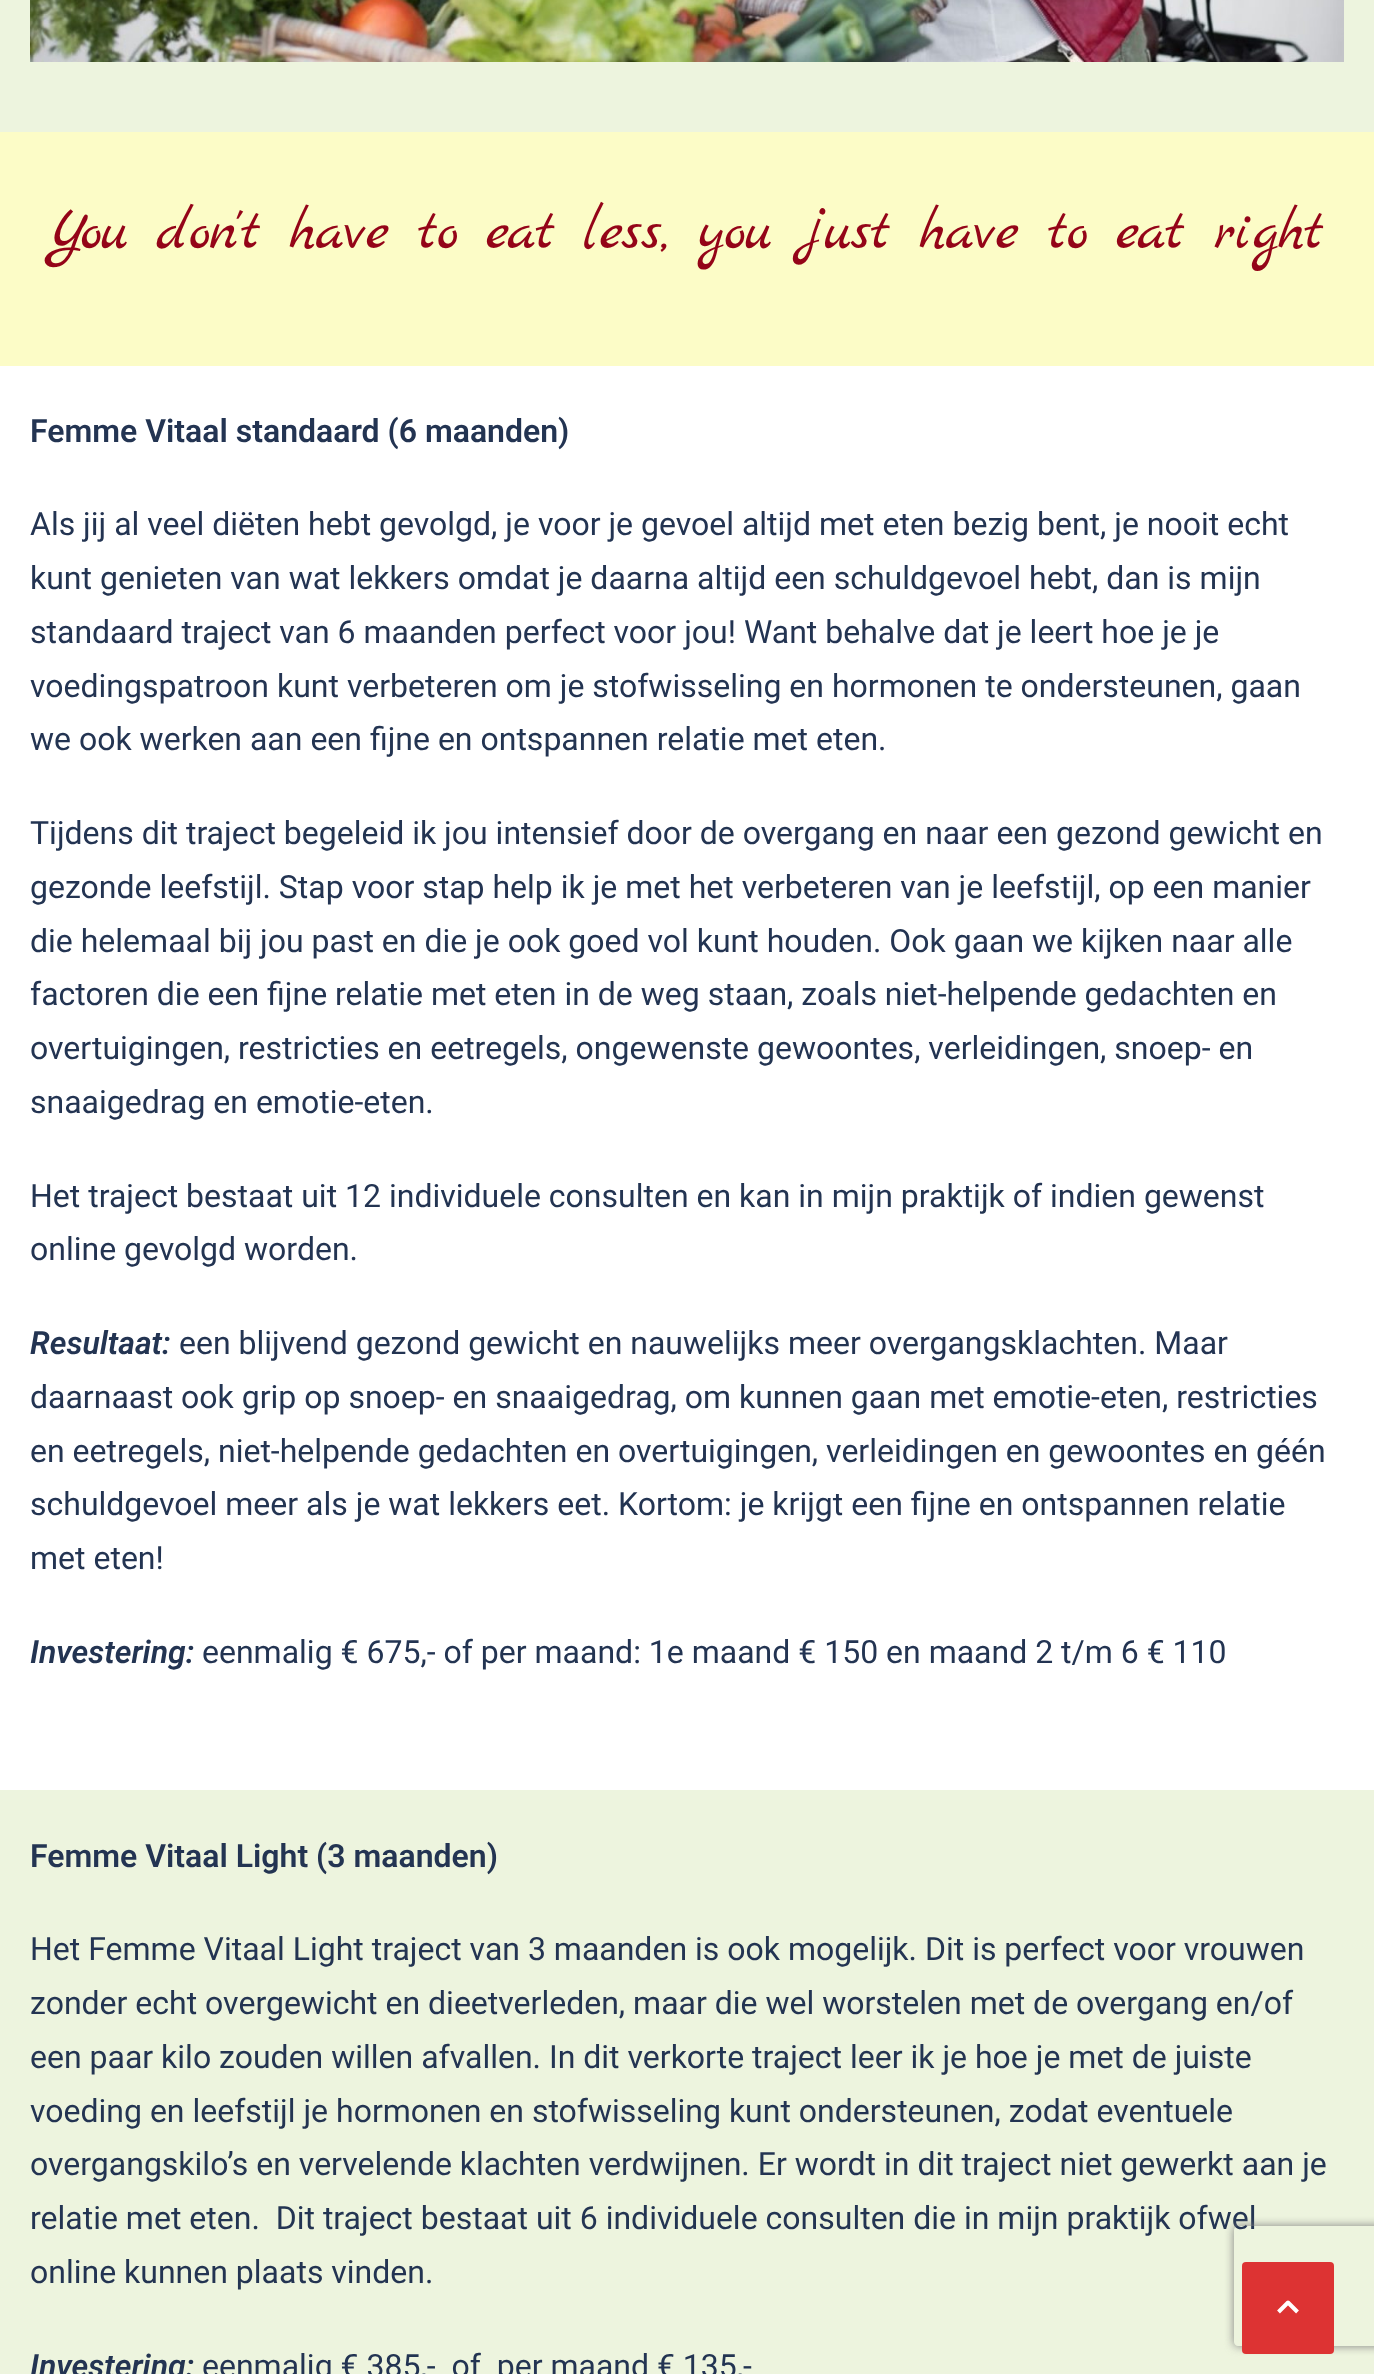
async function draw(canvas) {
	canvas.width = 1374;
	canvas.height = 2374;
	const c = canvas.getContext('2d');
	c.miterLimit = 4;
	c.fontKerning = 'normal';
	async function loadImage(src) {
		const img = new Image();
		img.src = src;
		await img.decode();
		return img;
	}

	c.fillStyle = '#fff';
	c.fillRect(0, 0, 1374, 2374);
	c.fillStyle = '#edf4de';
	c.fillRect(0, 0, 1374, 132);
	c.drawImage(await loadImage('img1.png'), 30, 0, 1314, 62);
	c.fillStyle = '#fcfcc7';
	c.fillRect(0, 132, 1374, 234);
	c.font = '60px Marck Script';
	c.fillStyle = '#940418';
	c.fillText('You don\'t have to eat less, you just have to eat right', 50, 248);
	c.font = '600 32px Roboto';
	c.fillStyle = '#233452';
	c.fillText('Femme Vitaal standaard (6 maanden)', 30, 442);
	c.font = '32px Roboto';
	for (const [text, x, y] of [
		['Als jij al veel diëten hebt gevolgd, je voor je gevoel altijd met eten bezig bent, je nooit echt', 30, 535],
		['kunt genieten van wat lekkers omdat je daarna altijd een schuldgevoel hebt, dan is mijn', 30, 589],
		['standaard traject van 6 maanden perfect voor jou! Want behalve dat je leert hoe je je', 30, 643],
		['voedingspatroon kunt verbeteren om je stofwisseling en hormonen te ondersteunen, gaan', 30, 697],
		['we ook werken aan een fijne en ontspannen relatie met eten.', 30, 750],
		['Tijdens dit traject begeleid ik jou intensief door de overgang en naar een gezond gewicht en', 30, 844],
		['gezonde leefstijl. Stap voor stap help ik je met het verbeteren van je leefstijl, op een manier', 30, 898],
		['die helemaal bij jou past en die je ook goed vol kunt houden. Ook gaan we kijken naar alle', 30, 952],
		['factoren die een fijne relatie met eten in de weg staan, zoals niet-helpende gedachten en', 30, 1005],
		['overtuigingen, restricties en eetregels, ongewenste gewoontes, verleidingen, snoep- en', 30, 1059],
		['snaaigedrag en emotie-eten.', 30, 1113],
		['Het traject bestaat uit 12 individuele consulten en kan in mijn praktijk of indien gewenst', 30, 1207],
		['online gevolgd worden.', 30, 1260],
	]) {
		c.fillText(text, x, y);
	}
	c.font = 'italic 600 32px Roboto';
	c.fillText('Resultaat:', 30, 1354);
	c.font = '32px Roboto';
	for (const [text, x, y] of [
		['een blijvend gezond gewicht en nauwelijks meer overgangsklachten. Maar', 179, 1354],
		['daarnaast ook grip op snoep- en snaaigedrag, om kunnen gaan met emotie-eten, restricties', 30, 1408],
		['en eetregels, niet-helpende gedachten en overtuigingen, verleidingen en gewoontes en géén', 30, 1462],
		['schuldgevoel meer als je wat lekkers eet. Kortom: je krijgt een fijne en ontspannen relatie', 30, 1515],
		['met eten!', 30, 1569],
	]) {
		c.fillText(text, x, y);
	}
	c.font = 'italic 600 32px Roboto';
	c.fillText('Investering:', 30, 1663);
	c.font = '32px Roboto';
	c.fillText('eenmalig € 675,- of per maand: 1e maand € 150 en maand 2 t/m 6 € 110', 202, 1663);
	c.fillStyle = '#edf4de';
	c.fillRect(0, 1790, 1374, 584);
	c.font = '600 32px Roboto';
	c.fillStyle = '#233452';
	c.fillText('Femme Vitaal Light (3 maanden)', 30, 1867);
	c.font = '32px Roboto';
	for (const [text, x, y] of [
		['Het Femme Vitaal Light traject van 3 maanden is ook mogelijk. Dit is perfect voor vrouwen', 30, 1960],
		['zonder echt overgewicht en dieetverleden, maar die wel worstelen met de overgang en/of', 30, 2014],
		['een paar kilo zouden willen afvallen. In dit verkorte traject leer ik je hoe je met de juiste', 30, 2068],
		['voeding en leefstijl je hormonen en stofwisseling kunt ondersteunen, zodat eventuele', 30, 2122],
		['overgangskilo’s en vervelende klachten verdwijnen. Er wordt in dit traject niet gewerkt aan je', 30, 2175],
		['relatie met eten.  Dit traject bestaat uit 6 individuele consulten die in mijn praktijk ofwel', 30, 2229],
		['online kunnen plaats vinden.', 30, 2283],
	]) {
		c.fillText(text, x, y);
	}
	c.font = 'italic 600 32px Roboto';
	c.fillText('Investering:', 30, 2377);
	c.font = '32px Roboto';
	c.fillText('eenmalig € 385,-  of  per maand € 135,-', 202, 2377);
	c.save();
	c.beginPath();
	c.moveTo(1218, 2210);
	c.lineTo(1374, 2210);
	c.lineTo(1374, 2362);
	c.lineTo(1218, 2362);
	c.closePath();
	c.moveTo(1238, 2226);
	c.lineTo(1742, 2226);
	c.bezierCurveTo(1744, 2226, 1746, 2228, 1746, 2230);
	c.lineTo(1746, 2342);
	c.bezierCurveTo(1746, 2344, 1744, 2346, 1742, 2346);
	c.lineTo(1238, 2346);
	c.bezierCurveTo(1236, 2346, 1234, 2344, 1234, 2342);
	c.lineTo(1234, 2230);
	c.bezierCurveTo(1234, 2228, 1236, 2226, 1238, 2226);
	c.closePath();
	c.clip('evenodd');
	c.fillStyle = '#808080';
	c.filter = 'blur(5px)';
	c.beginPath();
	c.roundRect(1234, 2226, 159, 120, 4);
	c.fill();
	c.filter = 'none';
	c.restore();
	c.fillStyle = '#d33';
	c.beginPath();
	c.roundRect(1242, 2262, 92, 92, 4);
	c.fill();
	c.beginPath();
	c.moveTo(1278.5, 2312);
	c.lineTo(1288, 2302.5);
	c.lineTo(1297.5, 2312);
	c.strokeStyle = '#fff';
	c.lineWidth = 4;
	c.lineJoin = 'round';
	c.stroke();
}

draw(document.querySelector('canvas'));
